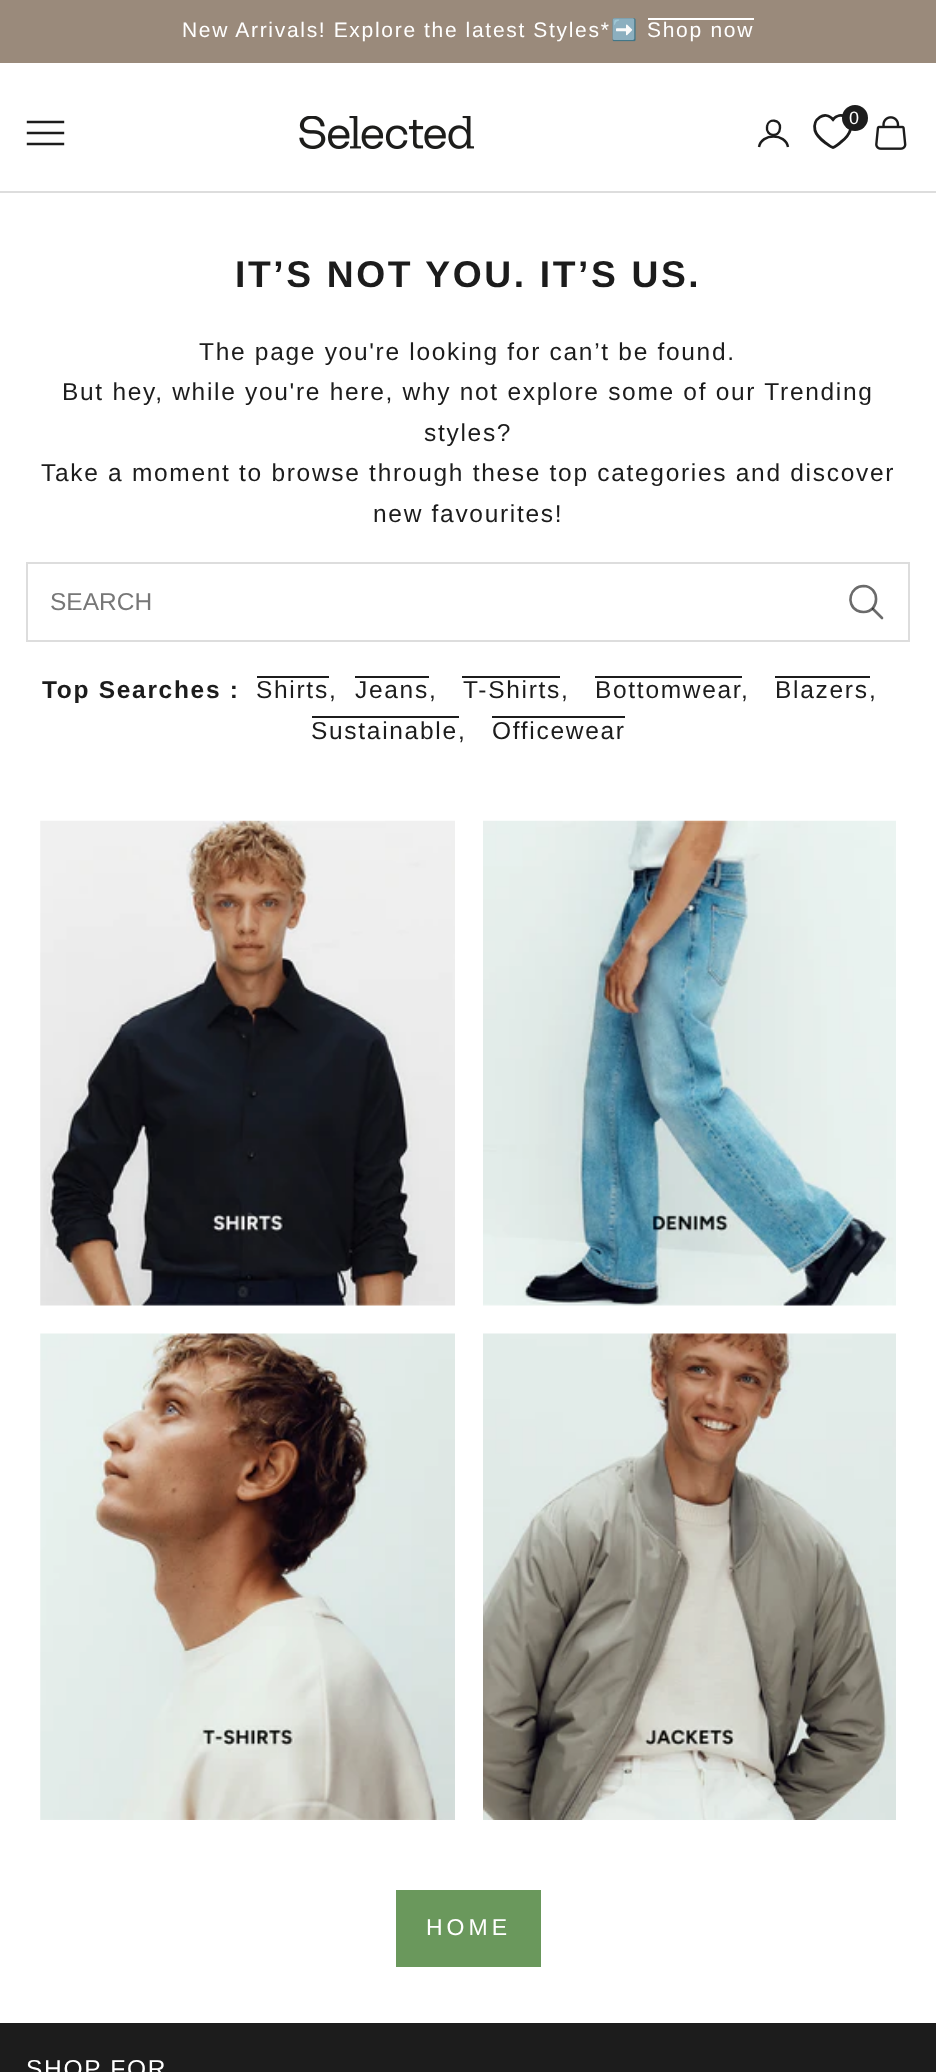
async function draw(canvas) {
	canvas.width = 936;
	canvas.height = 2072;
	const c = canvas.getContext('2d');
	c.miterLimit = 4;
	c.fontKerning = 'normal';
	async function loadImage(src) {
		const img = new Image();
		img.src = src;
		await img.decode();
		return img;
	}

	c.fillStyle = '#fff';
	c.fillRect(0, 0, 936, 2072);
	c.fillStyle = '#9a8a7b';
	c.fillRect(0, 0, 936, 63);
	c.letterSpacing = '1.7px';
	c.wordSpacing = '-0.25px';
	c.font = '21px Liberation Sans';
	c.fillStyle = '#fff';
	c.fillText('New Arrivals! Explore the latest Styles*', 182, 37);
	c.wordSpacing = '0px';
	c.font = '21px Noto Color Emoji';
	c.fillText('➡️', 611, 37);
	c.font = '21px Liberation Sans';
	c.fillText('Shop now', 647, 37);
	c.fillRect(648, 18, 106, 2);
	c.fillStyle = '#ddd';
	c.fillRect(0, 191, 936, 2);
	c.beginPath();
	c.moveTo(28, 144);
	c.lineTo(63, 144);
	c.moveTo(28, 133);
	c.lineTo(63, 133);
	c.moveTo(28, 122);
	c.lineTo(63, 122);
	c.strokeStyle = '#1c1c1c';
	c.lineWidth = 2.4;
	c.lineCap = 'square';
	c.stroke();
	c.drawImage(await loadImage('img1.png'), 299, 116, 175, 33);
	c.beginPath();
	c.moveTo(780, 128);
	c.bezierCurveTo(779.5, 138.5, 765.5, 136.5, 767, 126.5);
	c.bezierCurveTo(768, 118, 781, 119, 780, 128);
	c.closePath();
	c.lineCap = 'round';
	c.lineJoin = 'round';
	c.stroke();
	c.beginPath();
	c.moveTo(759, 147);
	c.bezierCurveTo(761.5, 133, 785.5, 133, 788, 147);
	c.lineCap = 'butt';
	c.lineJoin = 'miter';
	c.stroke();
	c.beginPath();
	c.moveTo(833, 147.5);
	c.bezierCurveTo(831, 147.5, 826.5, 143.5, 825, 142.5);
	c.bezierCurveTo(821, 139.5, 816.5, 135.5, 815, 130.5);
	c.bezierCurveTo(812, 119, 825, 110, 833, 119.5);
	c.bezierCurveTo(840, 110.5, 853.5, 118, 850.5, 129.5);
	c.bezierCurveTo(849, 135, 845, 139, 841, 142);
	c.bezierCurveTo(840, 143, 834.5, 147.5, 833, 147.5);
	c.closePath();
	c.lineWidth = 2.9;
	c.stroke();
	c.fillStyle = '#1c1c1c';
	c.beginPath();
	c.arc(855, 118, 13, 0, 2 * Math.PI);
	c.fill();
	c.font = '18px Liberation Sans';
	c.fillStyle = '#fff';
	c.fillText('0', 849, 124);
	c.drawImage(await loadImage('img2.png'), 875, 116, 32, 34);
	c.letterSpacing = '2.6px';
	c.font = 'bold 37.25px Liberation Sans';
	c.fillStyle = '#1c1c1c';
	c.fillText('IT’S NOT YOU. IT’S US.', 235, 287);
	c.letterSpacing = '1.7px';
	c.font = '24.5px Liberation Sans';
	for (const [text, x, y] of [
		['The page you\'re looking for can’t be found.', 199, 360],
		['But hey, while you\'re here, why not explore some of our Trending', 62, 400],
		['styles?', 424, 441],
		['Take a moment to browse through these top categories and discover', 41, 481],
		['new favourites!', 373, 522],
	]) {
		c.fillText(text, x, y);
	}
	c.strokeStyle = '#ddd';
	c.lineWidth = 2;
	c.strokeRect(27, 563, 882, 78);
	c.letterSpacing = '0px';
	c.fillStyle = '#777';
	c.fillText('SEARCH', 50, 610);
	c.beginPath();
	c.moveTo(863.5, 586);
	c.bezierCurveTo(850, 586, 845.5, 604, 857, 610.5);
	c.bezierCurveTo(859, 611.5, 861, 612, 863.5, 612);
	c.bezierCurveTo(880.5, 611.5, 880, 586.5, 863.5, 586);
	c.closePath();
	c.strokeStyle = '#6b6b6b';
	c.lineWidth = 2.6;
	c.stroke();
	c.beginPath();
	c.moveTo(873, 609);
	c.lineTo(882, 618);
	c.strokeStyle = '#1c1c1ca6';
	c.lineCap = 'round';
	c.stroke();
	c.letterSpacing = '1.7px';
	c.font = 'bold 24.5px Liberation Sans';
	c.fillStyle = '#1c1c1c';
	c.fillText('Top Searches :', 42, 698);
	c.font = '24.5px Liberation Sans';
	c.fillText('Shirts', 256, 698);
	c.fillRect(257, 676, 72, 2);
	c.wordSpacing = '5px';
	c.fillText(', ', 329, 698);
	c.wordSpacing = '0px';
	c.fillText('Jeans', 355, 698);
	c.fillRect(355, 676, 74, 2);
	c.wordSpacing = '2px';
	c.fillText(',  ', 429, 698);
	c.wordSpacing = '0px';
	c.fillText('T-Shirts', 463, 698);
	c.fillRect(462, 676, 98, 2);
	c.wordSpacing = '3px';
	c.fillText(',  ', 561, 698);
	c.wordSpacing = '0px';
	c.fillText('Bottomwear', 595, 698);
	c.fillRect(595, 676, 147, 2);
	c.wordSpacing = '3px';
	c.fillText(',  ', 741, 698);
	c.wordSpacing = '0px';
	c.fillText('Blazers', 775, 698);
	c.fillRect(775, 676, 95, 2);
	c.wordSpacing = '-1px';
	c.fillText(',  ', 869, 698);
	c.wordSpacing = '0px';
	c.fillText('Sustainable', 311, 739);
	c.fillRect(312, 716, 147, 2);
	c.wordSpacing = '3px';
	c.fillText(',  ', 458, 739);
	c.wordSpacing = '0px';
	c.fillText('Officewear', 492, 739);
	c.fillRect(492, 716, 133, 2);
	c.drawImage(await loadImage('img3.png'), 40, 820, 415, 486);
	c.drawImage(await loadImage('img4.png'), 483, 820, 413, 486);
	c.drawImage(await loadImage('img5.png'), 40, 1333, 415, 487);
	c.drawImage(await loadImage('img6.png'), 483, 1333, 413, 487);
	c.fillStyle = '#6a985c';
	c.beginPath();
	c.rect(397, 1891, 143, 75);
	c.fill();
	c.strokeStyle = '#6a985c';
	c.lineWidth = 2;
	c.stroke();
	c.letterSpacing = '4px';
	c.font = '23px Liberation Sans';
	c.fillStyle = '#fff';
	c.fillText('HOME', 426, 1935);
	c.fillStyle = '#1c1c1c';
	c.fillRect(0, 2023, 936, 49);
	c.letterSpacing = '1.7px';
	c.font = '24.5px Liberation Sans';
	c.fillStyle = '#fff';
	c.fillText('SHOP FOR', 26, 2077);
}

draw(document.querySelector('canvas'));
